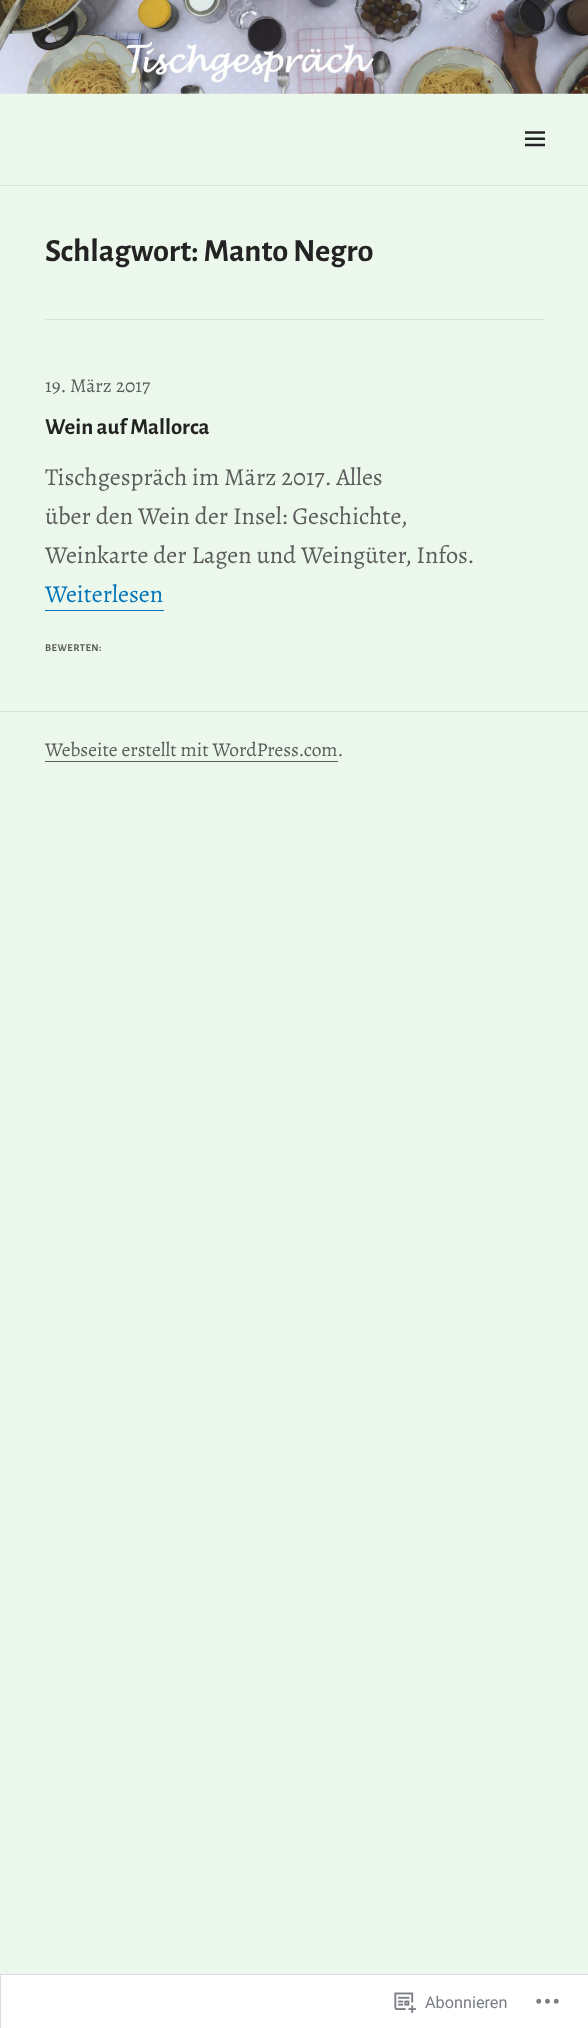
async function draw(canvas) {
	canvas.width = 588;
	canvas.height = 2028;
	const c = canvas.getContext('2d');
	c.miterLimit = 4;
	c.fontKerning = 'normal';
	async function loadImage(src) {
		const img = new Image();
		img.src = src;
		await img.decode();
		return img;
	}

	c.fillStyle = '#ecf8ec';
	c.fillRect(0, 0, 588, 2028);
	c.drawImage(await loadImage('img1.png'), 0, 0, 588, 94);
	c.fillStyle = '#cfe7cf';
	c.fillRect(0, 185, 588, 1);
	c.drawImage(await loadImage('img2.png'), 525, 131, 20, 16);
	c.fillRect(45, 319, 499, 1);
	c.font = 'bold 32.4px Alegreya Sans';
	c.fillStyle = '#232323';
	c.fillText('Schlagwort: Manto Negro', 45, 261);
	c.font = '19.5px Alegreya';
	c.fillStyle = '#5b5b5b';
	c.fillText('19. März 2017', 45, 392);
	c.font = 'bold 22.75px Alegreya Sans';
	c.fillStyle = '#232323';
	c.fillText('Wein auf Mallorca', 45, 434);
	c.font = '24.4px Alegreya';
	c.fillStyle = '#5b5b5b';
	for (const [text, x, y] of [
		['Tischgespräch im März 2017. Alles', 45, 485],
		['über den Wein der Insel: Geschichte,', 45, 524],
		['Weinkarte der Lagen und Weingüter, Infos.', 45, 563],
	]) {
		c.fillText(text, x, y);
	}
	c.fillStyle = '#0074b8';
	c.fillText('Weiterlesen', 45, 602);
	c.fillRect(45, 610, 119, 1);
	c.letterSpacing = '0.5px';
	c.font = 'bold 10.5px Alegreya Sans';
	c.fillStyle = '#5b5b5b';
	c.fillText('BEWERTEN:', 45, 651);
	c.fillStyle = '#cfe7cf';
	c.fillRect(0, 711, 588, 1);
	c.letterSpacing = '0px';
	c.font = '19.5px Alegreya';
	c.fillStyle = '#5b5b5b';
	c.fillText('Webseite erstellt mit WordPress.com.', 45, 756);
	c.fillRect(45, 761, 293, 1);
	c.fillStyle = '#fff';
	c.beginPath();
	c.rect(0.5, 1974.5, 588, 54);
	c.fill();
	c.strokeStyle = '#dcddde';
	c.stroke();
	c.drawImage(await loadImage('img3.png'), 394, 1992, 22, 21);
	c.font = '16.25px Roboto';
	c.fillStyle = '#7a7e84';
	c.fillText('Abonnieren', 425, 2008);
	c.drawImage(await loadImage('img4.png'), 536, 1998, 23, 6);
}

draw(document.querySelector('canvas'));
